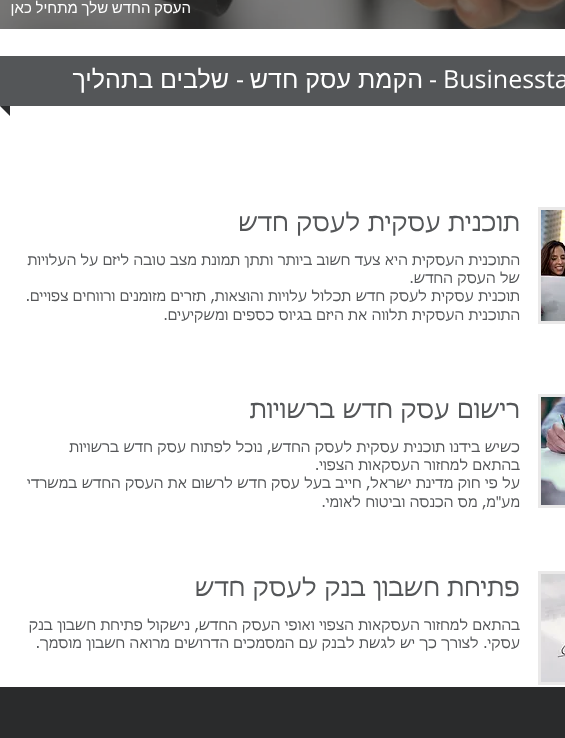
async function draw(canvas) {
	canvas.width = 565;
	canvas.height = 738;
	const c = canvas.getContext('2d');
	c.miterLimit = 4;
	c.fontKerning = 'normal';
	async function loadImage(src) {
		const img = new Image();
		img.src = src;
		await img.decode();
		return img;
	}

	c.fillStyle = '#fff';
	c.fillRect(0, 0, 565, 738);
	c.drawImage(await loadImage('img1.png'), 0, 0, 565, 29);
	c.wordSpacing = '-0.5px';
	c.direction = 'rtl';
	c.font = '15px Liberation Sans';
	c.fillText('העסק החדש שלך מתחיל כאן', 191, 13);
	c.fillStyle = '#545658';
	c.fillRect(0, 56, 565, 50);
	c.wordSpacing = '0px';
	c.direction = 'ltr';
	c.font = '25px Open Sans';
	c.fillStyle = '#fff';
	c.fillText('Businessta', 443, 88);
	c.direction = 'rtl';
	c.fillText('-', 437, 88);
	c.font = '25px Liberation Sans';
	c.fillText('הקמת עסק חדש', 423, 88);
	c.font = '25px Open Sans';
	c.fillText('-', 244, 88);
	c.font = '25px Liberation Sans';
	c.fillText('שלבים בתהליך', 229, 88);
	c.fillStyle = '#2a2b2c';
	c.beginPath();
	c.moveTo(0, 106);
	c.lineTo(10, 106);
	c.lineTo(10, 116);
	c.closePath();
	c.fill();
	c.strokeStyle = '#eae9e9';
	c.lineWidth = 3;
	c.strokeRect(539.5, 208.5, 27, 114);
	c.drawImage(await loadImage('img2.png'), 541, 210, 24, 111);
	c.font = '24px tahoma';
	c.fillStyle = '#545658';
	c.fillText('תוכנית עסקית לעסק חדש', 520, 231);
	c.font = '14px tahoma';
	for (const [text, x, y] of [
		['התוכנית העסקית היא צעד חשוב ביותר ותתן תמונת מצב טובה ליזם על העלויות', 520, 265],
		['של העסק החדש.', 520, 283],
		['תוכנית עסקית לעסק חדש תכלול עלויות והוצאות, תזרים מזומנים ורווחים צפויים.', 520, 301],
		['התוכנית העסקית תלווה את היזם בגיוס כספים ומשקיעים.', 520, 320],
	]) {
		c.fillText(text, x, y);
	}
	c.strokeRect(539.5, 395.5, 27, 111);
	c.drawImage(await loadImage('img3.png'), 541, 397, 24, 108);
	c.font = '24px tahoma';
	c.fillText('רישום עסק חדש ברשויות', 520, 418);
	c.font = '14px tahoma';
	for (const [text, x, y] of [
		['כשיש בידנו תוכנית עסקית לעסק החדש, נוכל לפתוח עסק חדש ברשויות', 520, 452],
		['בהתאם למחזור העסקאות הצפוי.', 520, 470],
		['על פי חוק מדינת ישראל, חייב בעל עסק חדש לרשום את העסק החדש במשרדי', 520, 488],
		['מע"מ, מס הכנסה וביטוח לאומי.', 520, 507],
	]) {
		c.fillText(text, x, y);
	}
	c.strokeRect(539.5, 572.5, 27, 111);
	c.drawImage(await loadImage('img4.png'), 541, 574, 24, 108);
	c.font = '24px tahoma';
	c.fillText('פתיחת חשבון בנק לעסק חדש', 520, 596);
	c.font = '14px tahoma';
	c.fillText('בהתאם למחזור העסקאות הצפוי ואופי העסק החדש, נישקול פתיחת חשבון בנק', 520, 630);
	c.fillText('עסקי. לצורך כך יש לגשת לבנק עם המסמכים הדרושים מרואה חשבון מוסמך.', 520, 648);
	c.fillStyle = '#2a2b2c';
	c.fillRect(0, 687, 565, 51);
}

draw(document.querySelector('canvas'));
